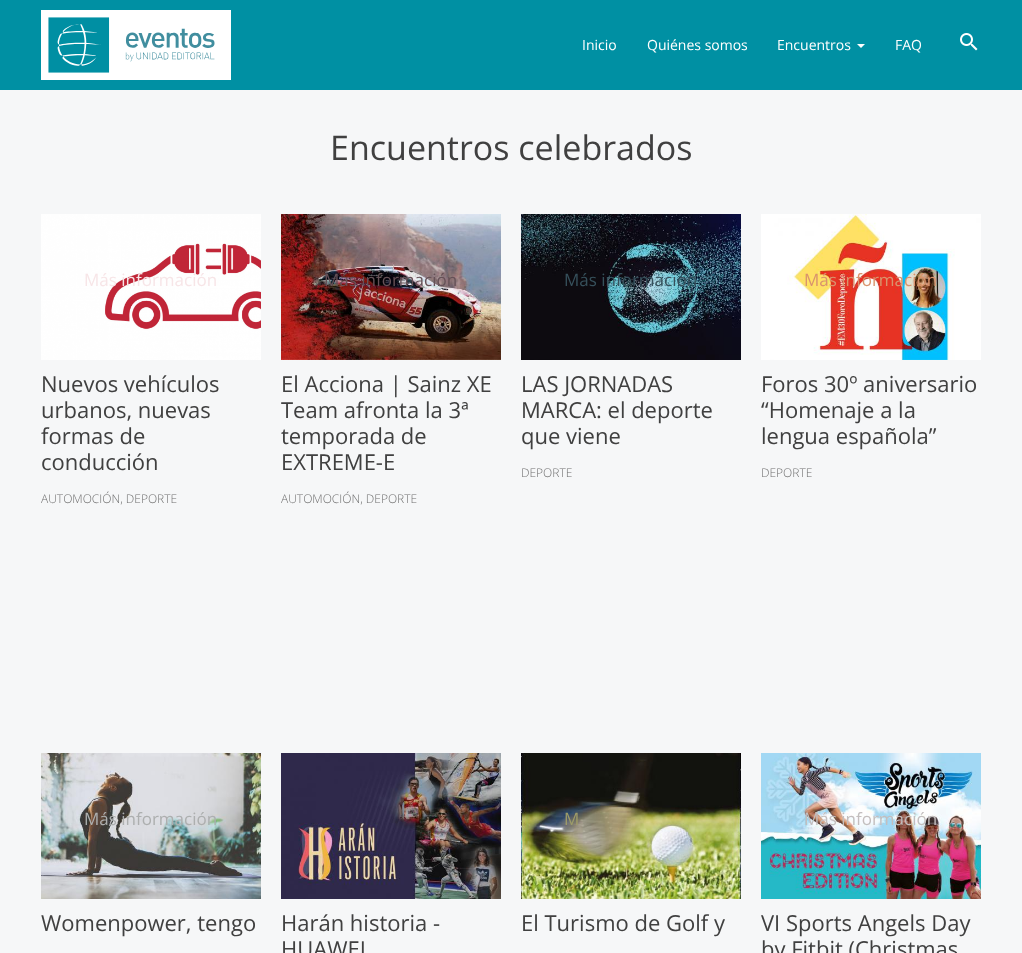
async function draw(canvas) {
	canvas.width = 1022;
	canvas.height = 953;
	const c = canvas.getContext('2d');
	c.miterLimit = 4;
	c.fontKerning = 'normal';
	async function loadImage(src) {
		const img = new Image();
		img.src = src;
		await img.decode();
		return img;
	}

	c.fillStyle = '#f6f7f8';
	c.fillRect(0, 0, 1022, 953);
	c.fillStyle = '#0090a3';
	c.fillRect(0, 0, 1022, 90);
	c.drawImage(await loadImage('img1.png'), 41, 10, 190, 70);
	c.font = '14px Open Sans';
	c.fillStyle = '#fff';
	for (const [text, x, y] of [
		['Inicio', 582, 50],
		['Quiénes somos', 647, 50],
		['Encuentros', 777, 50],
	]) {
		c.fillText(text, x, y);
	}
	c.beginPath();
	c.moveTo(857, 44);
	c.lineTo(865, 44);
	c.lineTo(861, 48);
	c.closePath();
	c.fill();
	c.fillText('FAQ', 895, 50);
	c.drawImage(await loadImage('img2.png'), 960, 33, 18, 18);
	c.font = '34px Open Sans';
	c.fillStyle = '#404040';
	c.fillText('Encuentros celebrados', 330, 160);
	c.drawImage(await loadImage('img3.png'), 41, 214, 220, 146);
	c.font = '17px Open Sans';
	c.fillStyle = '#f7e5e7';
	c.fillText('Más información', 84, 286);
	c.font = '22px Open Sans';
	c.fillStyle = '#404040';
	for (const [text, x, y] of [
		['Nuevos vehículos', 41, 392],
		['urbanos, nuevas', 41, 418],
		['formas de', 41, 444],
		['conducción', 41, 470],
	]) {
		c.fillText(text, x, y);
	}
	c.font = '300 12px Open Sans';
	c.fillStyle = '#707070';
	c.fillText('AUTOMOCIÓN, DEPORTE', 41, 503);
	c.drawImage(await loadImage('img4.png'), 281, 214, 220, 146);
	c.font = '17px Open Sans';
	c.fillStyle = '#665157';
	c.fillText('Más información', 324, 286);
	c.font = '22px Open Sans';
	c.fillStyle = '#404040';
	for (const [text, x, y] of [
		['El Acciona | Sainz XE', 281, 392],
		['Team afronta la 3ª', 281, 418],
		['temporada de', 281, 444],
		['EXTREME-E', 281, 470],
	]) {
		c.fillText(text, x, y);
	}
	c.font = '300 12px Open Sans';
	c.fillStyle = '#707070';
	c.fillText('AUTOMOCIÓN, DEPORTE', 281, 503);
	c.drawImage(await loadImage('img5.png'), 521, 214, 220, 146);
	c.font = '17px Open Sans';
	c.fillStyle = '#36505b';
	c.fillText('Más información', 564, 286);
	c.font = '22px Open Sans';
	c.fillStyle = '#404040';
	for (const [text, x, y] of [
		['LAS JORNADAS', 521, 392],
		['MARCA: el deporte', 521, 418],
		['que viene', 521, 444],
	]) {
		c.fillText(text, x, y);
	}
	c.font = '300 12px Open Sans';
	c.fillStyle = '#707070';
	c.fillText('DEPORTE', 521, 477);
	c.drawImage(await loadImage('img6.png'), 761, 214, 220, 146);
	c.font = '17px Open Sans';
	c.fillStyle = '#d9936d';
	c.fillText('Más información', 804, 286);
	c.font = '22px Open Sans';
	c.fillStyle = '#404040';
	for (const [text, x, y] of [
		['Foros 30º aniversario', 761, 392],
		['“Homenaje a la', 761, 418],
		['lengua española”', 761, 444],
	]) {
		c.fillText(text, x, y);
	}
	c.font = '300 12px Open Sans';
	c.fillStyle = '#707070';
	c.fillText('DEPORTE', 761, 477);
	c.drawImage(await loadImage('img7.png'), 41, 753, 220, 146);
	c.font = '17px Open Sans';
	c.fillStyle = '#adafaf';
	c.fillText('Más información', 84, 825);
	c.font = '22px Open Sans';
	c.fillStyle = '#404040';
	c.fillText('Womenpower, tengo', 41, 931);
	c.drawImage(await loadImage('img8.png'), 281, 753, 220, 146);
	c.fillText('Harán historia -', 281, 931);
	c.fillText('HUAWEI', 281, 957);
	c.drawImage(await loadImage('img9.png'), 521, 753, 220, 146);
	c.font = '17px Open Sans';
	c.fillStyle = '#9e9c68';
	c.fillText('M', 564, 825);
	c.font = '22px Open Sans';
	c.fillStyle = '#404040';
	c.fillText('El Turismo de Golf y', 521, 931);
	c.drawImage(await loadImage('img10.png'), 761, 753, 220, 146);
	c.font = '17px Open Sans';
	c.fillStyle = '#c3bebe';
	c.fillText('Más información', 804, 825);
	c.font = '22px Open Sans';
	c.fillStyle = '#404040';
	c.fillText('VI Sports Angels Day', 761, 931);
	c.fillText('by Fitbit (Christmas', 761, 957);
}

draw(document.querySelector('canvas'));
